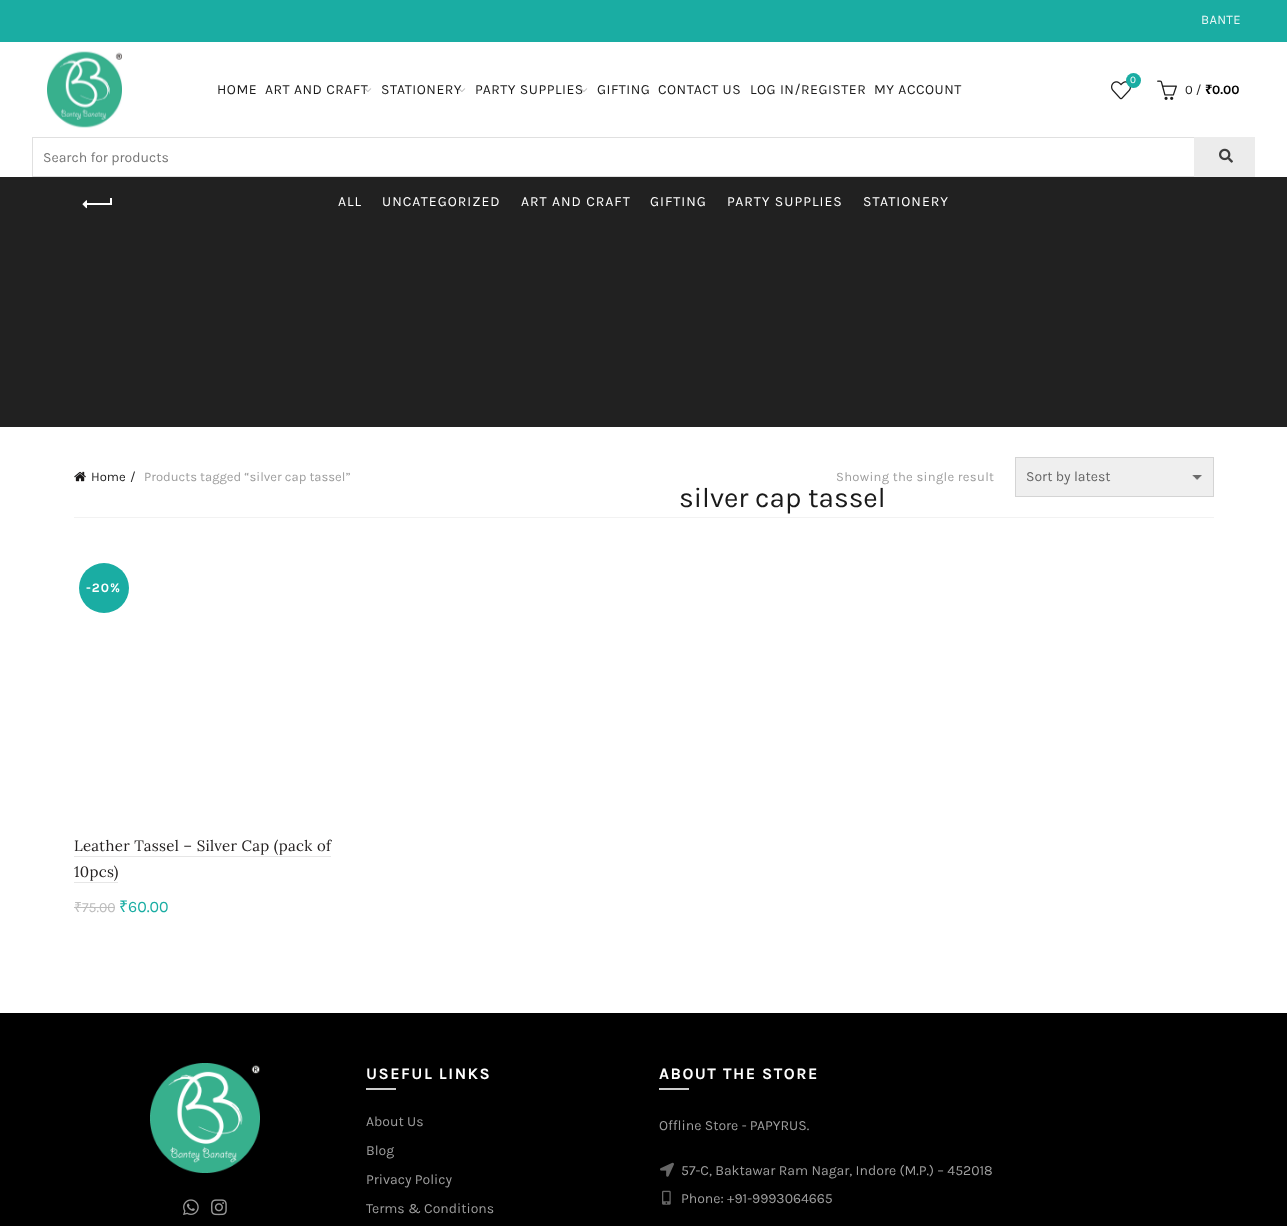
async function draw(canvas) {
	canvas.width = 1287;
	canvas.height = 1226;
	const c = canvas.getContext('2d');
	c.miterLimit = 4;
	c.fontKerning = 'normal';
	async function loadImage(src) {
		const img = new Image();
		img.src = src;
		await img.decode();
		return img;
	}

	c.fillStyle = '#fff';
	c.fillRect(0, 0, 1287, 1226);
	c.fillStyle = '#1aada3';
	c.fillRect(0, 0, 1287, 42);
	c.letterSpacing = '0.3px';
	c.font = '13px Karla';
	c.fillStyle = '#e8f7f6';
	c.fillText('BANTE', 1201, 24);
	c.drawImage(await loadImage('img1.png'), 47, 51, 75, 77);
	c.letterSpacing = '0.5px';
	c.font = '14px Karla';
	c.fillStyle = '#1a1a1a';
	c.fillText('HOME', 217, 94);
	c.fillText('ART AND CRAFT', 265, 94);
	c.drawImage(await loadImage('img2.png'), 364, 88, 8, 4);
	c.fillText('STATIONERY', 381, 94);
	c.drawImage(await loadImage('img3.png'), 458, 88, 8, 4);
	c.fillText('PARTY SUPPLIES', 475, 94);
	c.drawImage(await loadImage('img4.png'), 580, 88, 8, 4);
	for (const [text, x, y] of [
		['GIFTING', 597, 94],
		['CONTACT US', 658, 94],
		['LOG IN/REGISTER', 750, 94],
		['MY ACCOUNT', 874, 94],
	]) {
		c.fillText(text, x, y);
	}
	c.drawImage(await loadImage('img5.png'), 1111, 81, 20, 19);
	c.fillStyle = '#1aada3';
	c.beginPath();
	c.arc(1133.5, 80.5, 7.5, 0, 2 * Math.PI);
	c.fill();
	c.letterSpacing = '0px';
	c.font = '10px Karla';
	c.fillStyle = '#fff';
	c.fillText('0', 1130, 83);
	c.drawImage(await loadImage('img6.png'), 1157, 80, 20, 20);
	c.font = '13px Karla';
	c.fillStyle = '#1a1a1a';
	c.fillText('0 /', 1185, 94);
	c.font = 'bold 13px Noto Sans';
	c.fillStyle = '#000';
	c.fillText('₹', 1205, 94);
	c.font = 'bold 13px Karla';
	c.fillText('0.00', 1212, 94);
	c.strokeStyle = '#e0e0e0';
	c.strokeRect(32.5, 137.5, 1222, 39);
	c.font = '14px Karla';
	c.fillStyle = '#757575';
	c.fillText('Search for products', 43, 162);
	c.fillStyle = '#ececec';
	c.fillRect(1194, 137, 61, 40);
	c.drawImage(await loadImage('img7.png'), 1219, 148, 14, 15);
	c.fillStyle = '#212121';
	c.fillRect(0, 177, 1287, 250);
	c.fillStyle = '#fff';
	c.fillRect(86, 203, 25, 2);
	c.drawImage(await loadImage('img8.png'), 82, 200, 5, 9);
	c.fillRect(110, 198, 2, 7);
	c.letterSpacing = '1px';
	for (const [text, x, y] of [
		['ALL', 338, 206],
		['UNCATEGORIZED', 382, 206],
		['ART AND CRAFT', 521, 206],
		['GIFTING', 650, 206],
		['PARTY SUPPLIES', 727, 206],
		['STATIONERY', 863, 206],
	]) {
		c.fillText(text, x, y);
	}
	c.drawImage(await loadImage('img9.png'), 74, 471, 12, 11);
	c.letterSpacing = '0px';
	c.font = '13px Karla';
	c.fillStyle = '#1a1a1a';
	c.fillText('Home', 91, 481);
	c.fillText('/', 130, 481);
	c.fillStyle = '#9e9e9e';
	c.fillText('Products tagged “silver cap tassel”', 144, 481);
	c.letterSpacing = '0.3px';
	c.fillText('Showing the single result', 836, 481);
	c.fillStyle = '#efefef';
	c.fillRect(1016, 458, 197, 38);
	c.drawImage(await loadImage('img10.png'), 1192, 475, 10, 5);
	c.strokeStyle = '#d4d4d4';
	c.strokeRect(1015.5, 457.5, 198, 39);
	c.letterSpacing = '0px';
	c.font = '14px Karla';
	c.fillStyle = '#636363';
	c.fillText('Sort by latest', 1026, 481);
	c.fillStyle = '#f2f2f2';
	c.fillRect(74, 517, 1140, 1);
	c.font = '28px Karla';
	c.fillStyle = '#1a1a1a';
	c.fillText('silver cap tassel', 679, 507);
	c.fillStyle = '#1aada3';
	c.beginPath();
	c.arc(104, 588, 25, 0, 2 * Math.PI);
	c.fill();
	c.letterSpacing = '1px';
	c.font = 'bold 13px Karla';
	c.fillStyle = '#fff';
	c.fillText('-20%', 86, 592);
	c.letterSpacing = '0.3px';
	c.font = '15px Lora';
	c.fillStyle = '#252222';
	c.fillText('Leather Tassel – Silver Cap (pack of', 74, 851);
	c.fillStyle = '#e6e6e6';
	c.fillRect(74, 856, 257, 1);
	c.fillStyle = '#252222';
	c.fillText('10pcs)', 74, 877);
	c.fillStyle = '#e6e6e6';
	c.fillRect(74, 882, 44, 1);
	c.letterSpacing = '0px';
	c.font = '14px Noto Sans';
	c.fillStyle = '#bdbdbd';
	c.fillText('₹', 74, 912);
	c.fillRect(74, 907, 8, 1);
	c.font = '14px Karla';
	c.fillText('75.00', 82, 912);
	c.fillRect(82, 907, 33, 1);
	c.font = '16px Noto Sans';
	c.fillStyle = '#1aada3';
	c.fillText('₹', 119, 912);
	c.font = '16px Karla';
	c.fillText('60.00', 128, 912);
	c.fillStyle = '#000';
	c.fillRect(0, 1013, 1287, 213);
	c.drawImage(await loadImage('img11.png'), 150, 1063, 110, 110);
	c.drawImage(await loadImage('img12.png'), 183, 1199, 16, 16);
	c.drawImage(await loadImage('img13.png'), 211, 1199, 16, 17);
	c.letterSpacing = '1.5px';
	c.font = 'bold 16px Karla';
	c.fillStyle = '#fff';
	c.fillText('USEFUL LINKS', 366, 1079);
	c.fillStyle = '#ccc';
	c.fillRect(366, 1088, 30, 2);
	c.letterSpacing = '0px';
	c.font = '14px Karla';
	c.fillStyle = '#9e9e9e';
	for (const [text, x, y] of [
		['About Us', 366, 1126],
		['Blog', 366, 1155],
		['Privacy Policy', 366, 1184],
		['Terms & Conditions', 366, 1213],
	]) {
		c.fillText(text, x, y);
	}
	c.letterSpacing = '1.5px';
	c.font = 'bold 16px Karla';
	c.fillStyle = '#fff';
	c.fillText('ABOUT THE STORE', 659, 1079);
	c.fillStyle = '#ccc';
	c.fillRect(659, 1088, 30, 2);
	c.letterSpacing = '0px';
	c.font = '14px Karla';
	c.fillStyle = '#9e9e9e';
	c.fillText('Offline Store - PAPYRUS.', 659, 1130);
	c.drawImage(await loadImage('img14.png'), 660, 1162, 14, 15);
	c.fillText('57-C, Baktawar Ram Nagar, Indore (M.P.) – 452018', 681, 1175);
	c.drawImage(await loadImage('img15.png'), 662, 1190, 9, 15);
	c.fillText('Phone: +91-9993064665', 681, 1203);
}

draw(document.querySelector('canvas'));
